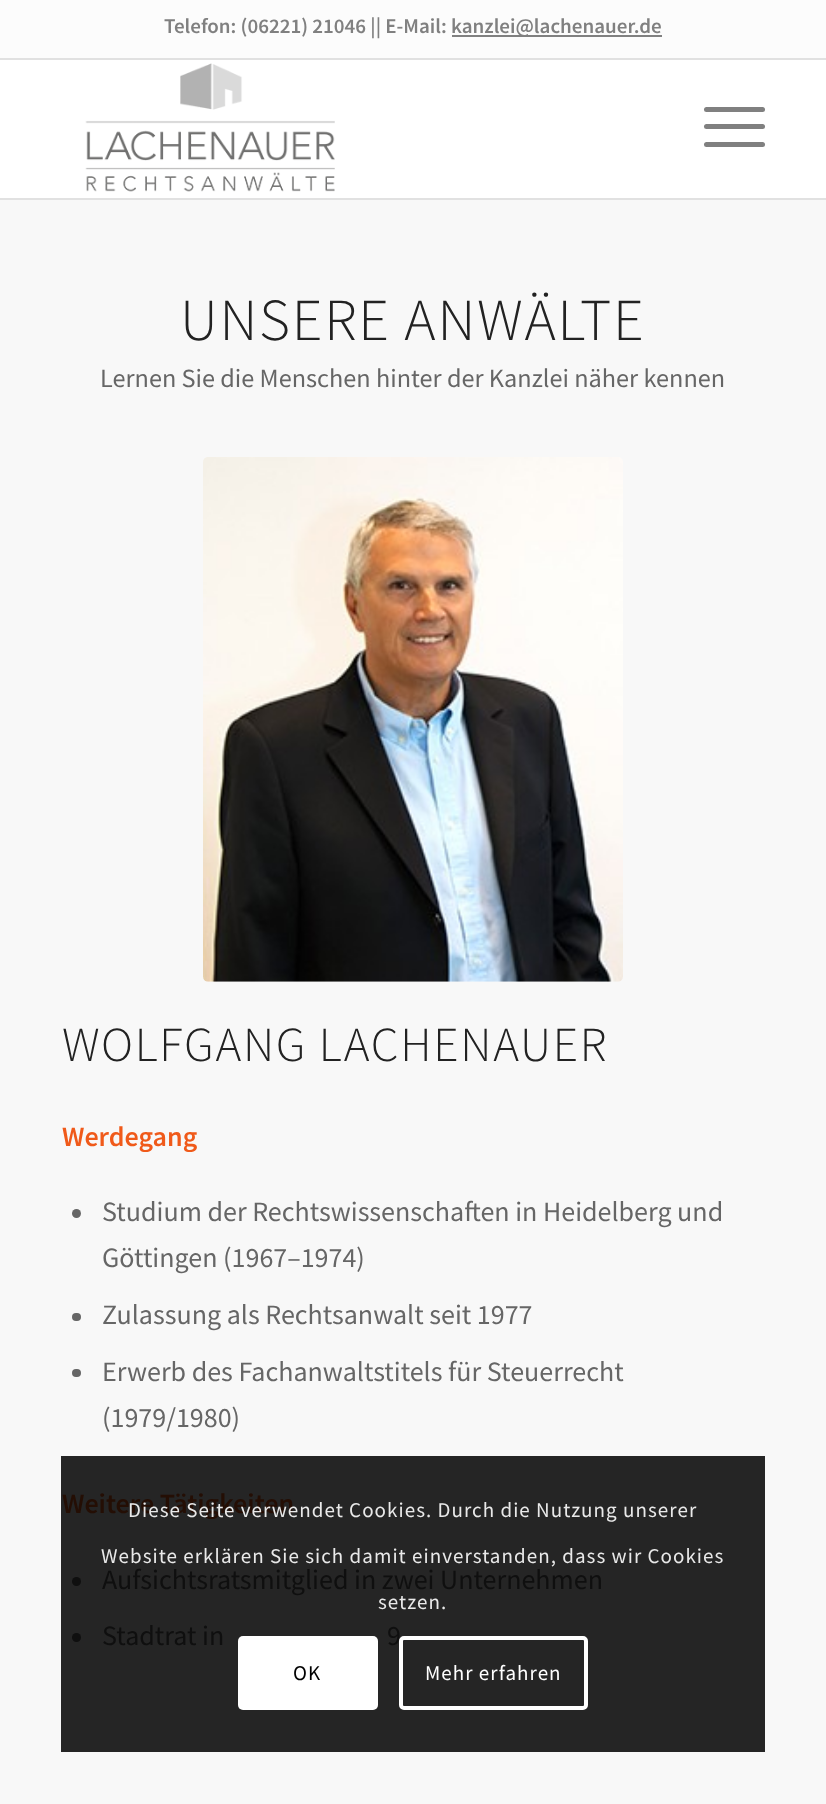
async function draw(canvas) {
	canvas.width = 826;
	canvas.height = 1804;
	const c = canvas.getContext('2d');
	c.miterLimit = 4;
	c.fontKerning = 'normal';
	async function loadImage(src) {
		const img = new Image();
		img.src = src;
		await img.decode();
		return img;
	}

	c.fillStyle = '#f8f8f8';
	c.fillRect(0, 0, 826, 1804);
	c.fillStyle = '#fcfcfc';
	c.fillRect(0, 0, 826, 58);
	c.fillStyle = '#e1e1e1';
	c.fillRect(0, 58, 826, 2);
	c.font = '600 21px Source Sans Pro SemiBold';
	c.fillStyle = '#808080';
	c.fillText('Telefon: (06221) 21046 || E-Mail:', 164, 33);
	c.fillRect(452, 35, 210, 2);
	c.fillText('kanzlei@lachenauer.de', 451, 33);
	c.fillStyle = '#fff';
	c.fillRect(0, 60, 826, 138);
	c.fillStyle = '#e1e1e1';
	c.fillRect(0, 198, 826, 2);
	c.drawImage(await loadImage('img1.png'), 85, 63, 250, 129);
	c.fillStyle = '#808080';
	c.beginPath();
	c.roundRect(704, 124, 61, 5, 2.5);
	c.fill();
	c.beginPath();
	c.roundRect(704, 107, 61, 5, 2.5);
	c.fill();
	c.beginPath();
	c.roundRect(704, 142, 61, 5, 2.5);
	c.fill();
	c.fillStyle = '#252525';
	c.fillRect(61, 1456, 704, 296);
	c.letterSpacing = '1.75px';
	c.font = '300 59.5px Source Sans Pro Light';
	c.fillStyle = '#222';
	c.fillText('UNSERE ANWÄLTE', 180, 340);
	c.letterSpacing = '0px';
	c.font = '26.25px Source Sans Pro';
	c.fillStyle = '#666';
	c.fillText('Lernen Sie die Menschen hinter der Kanzlei näher kennen', 100, 387);
	c.drawImage(await loadImage('img2.png'), 203, 457, 420, 525);
	c.letterSpacing = '1.75px';
	c.font = '300 49px Source Sans Pro Light';
	c.fillStyle = '#222';
	c.fillText('WOLFGANG LACHENAUER', 62, 1061);
	c.letterSpacing = '0px';
	c.font = '600 28px Source Sans Pro SemiBold';
	c.fillStyle = '#f05a1a';
	c.fillText('Werdegang', 62, 1146);
	c.fillStyle = '#666';
	c.beginPath();
	c.arc(76.5, 1213.5, 4.5, 0, 2 * Math.PI);
	c.fill();
	c.font = '28px Source Sans Pro';
	c.fillText('Studium der Rechtswissenschaften in Heidelberg und', 102, 1221);
	c.fillText('Göttingen (1967–1974)', 102, 1267);
	c.beginPath();
	c.roundRect(72, 1313, 9, 8, 4);
	c.fill();
	c.fillText('Zulassung als Rechtsanwalt seit 1977', 102, 1324);
	c.beginPath();
	c.roundRect(72, 1369, 9, 8, 4);
	c.fill();
	c.fillText('Erwerb des Fachanwaltstitels für Steuerrecht', 102, 1381);
	c.fillText('(1979/1980)', 102, 1427);
	c.font = '600 28px Source Sans Pro SemiBold';
	c.fillStyle = '#240e04';
	c.fillText('Weitere Tätigkeiten', 62, 1513);
	c.fillStyle = '#0f0f0f';
	c.beginPath();
	c.arc(76.5, 1581.5, 4.5, 0, 2 * Math.PI);
	c.fill();
	c.font = '28px Source Sans Pro';
	c.fillText('Aufsichtsratsmitglied in zwei Unternehmen', 102, 1589);
	c.beginPath();
	c.arc(76.5, 1637.5, 4.5, 0, 2 * Math.PI);
	c.fill();
	c.fillText('Stadtrat in', 102, 1645);
	c.fillText('9', 387, 1645);
	c.letterSpacing = '1.05px';
	c.font = '21px Source Sans Pro';
	c.fillStyle = '#e9e9e9';
	for (const [text, x, y] of [
		['Diese Seite verwendet Cookies. Durch die Nutzung unserer', 128, 1517],
		['Website erklären Sie sich damit einverstanden, dass wir Cookies', 101, 1563],
		['setzen.', 378, 1609],
	]) {
		c.fillText(text, x, y);
	}
	c.fillStyle = '#fff';
	c.beginPath();
	c.roundRect(238, 1636, 140, 74, 5);
	c.fill();
	c.fillStyle = '#000';
	c.fillText('OK', 293, 1680);
	c.beginPath();
	c.roundRect(401, 1638, 185, 70, 3);
	c.strokeStyle = '#fff';
	c.lineWidth = 4;
	c.stroke();
	c.fillStyle = '#fff';
	c.fillText('Mehr erfahren', 425, 1680);
}

draw(document.querySelector('canvas'));
